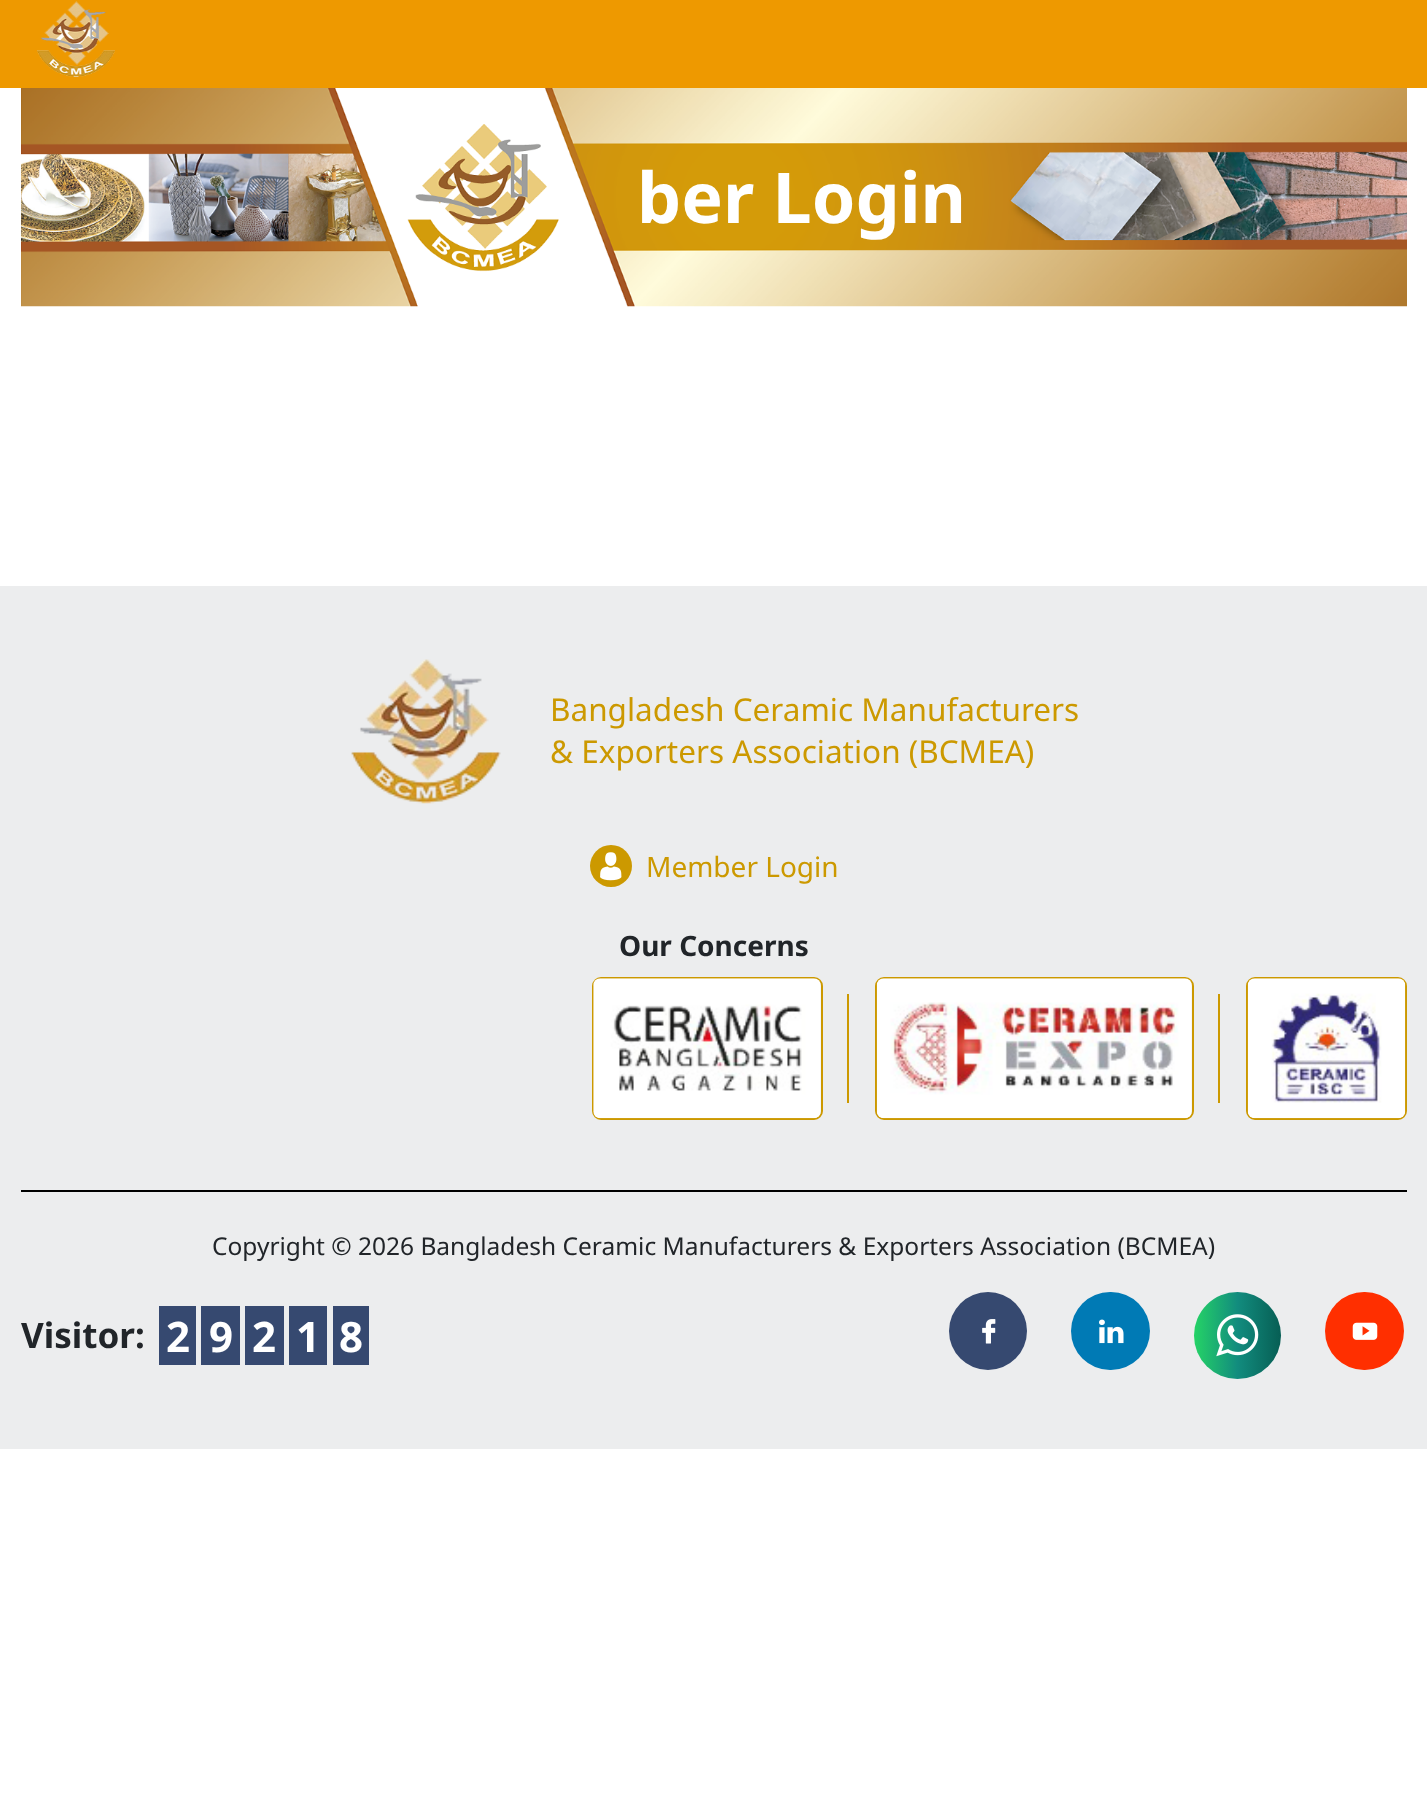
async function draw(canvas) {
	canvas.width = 1427;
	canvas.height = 1811;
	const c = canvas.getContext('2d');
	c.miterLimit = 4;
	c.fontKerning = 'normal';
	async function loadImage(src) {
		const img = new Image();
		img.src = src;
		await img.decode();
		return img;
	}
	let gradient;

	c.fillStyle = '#fff';
	c.fillRect(0, 0, 1427, 1811);
	c.fillStyle = '#e90';
	c.fillRect(0, 0, 1427, 88);
	c.drawImage(await loadImage('img1.png'), 37, 1, 78, 76);
	c.drawImage(await loadImage('img2.png'), 21, 88, 1386, 219);
	c.font = 'bold 70px Noto Sans';
	c.fillStyle = '#fff';
	c.fillText('ber Login', 637, 223);
	c.fillStyle = '#ecedee';
	c.fillRect(0, 586, 1427, 863);
	c.drawImage(await loadImage('img3.png'), 351, 659, 150, 145);
	c.font = '31.5px Noto Sans';
	c.fillStyle = '#c90';
	c.fillText('Bangladesh Ceramic Manufacturers', 550, 721);
	c.fillText('& Exporters Association (BCMEA)', 550, 763);
	c.beginPath();
	c.arc(611, 866, 21, 0, 2 * Math.PI);
	c.fill();
	c.drawImage(await loadImage('img4.png'), 600, 852, 22, 29);
	c.font = '28px Noto Sans';
	c.fillText('Member Login', 646, 877);
	c.font = 'bold 28px Noto Sans';
	c.fillStyle = '#212529';
	c.fillText('Our Concerns', 619, 956);
	c.beginPath();
	c.roundRect(593, 978, 229, 141, 8);
	c.strokeStyle = '#c90';
	c.lineWidth = 2;
	c.stroke();
	c.drawImage(await loadImage('img5.png'), 593, 978, 228, 141);
	c.fillStyle = '#c90';
	c.fillRect(847, 994, 2, 109);
	c.beginPath();
	c.roundRect(876, 978, 317, 141, 8);
	c.stroke();
	c.drawImage(await loadImage('img6.png'), 876, 978, 316, 141);
	c.fillRect(1218, 994, 2, 109);
	c.beginPath();
	c.roundRect(1247, 978, 159, 141, 8);
	c.stroke();
	c.drawImage(await loadImage('img7.png'), 1247, 978, 159, 141);
	c.fillStyle = '#000';
	c.fillRect(21, 1190, 1386, 2);
	c.font = '24.5px Noto Sans';
	c.fillStyle = '#212529';
	c.fillText('Copyright © 2026 Bangladesh Ceramic Manufacturers & Exporters Association (BCMEA)', 212, 1255);
	c.font = 'bold 35px Noto Sans';
	c.fillText('Visitor:', 21, 1348);
	c.fillStyle = '#364970';
	c.fillRect(159, 1306, 37, 59);
	c.font = 'bold 42px Noto Sans';
	c.fillStyle = '#fff';
	c.fillText('2', 166, 1352);
	c.fillStyle = '#364970';
	c.fillRect(201, 1306, 39, 59);
	c.fillStyle = '#fff';
	c.fillText('9', 209, 1352);
	c.fillStyle = '#364970';
	c.fillRect(245, 1306, 39, 59);
	c.fillStyle = '#fff';
	c.fillText('2', 252, 1352);
	c.fillStyle = '#364970';
	c.fillRect(289, 1306, 38, 59);
	c.fillStyle = '#fff';
	c.fillText('1', 296, 1352);
	c.fillStyle = '#364970';
	c.fillRect(333, 1306, 36, 59);
	c.fillStyle = '#fff';
	c.fillText('8', 339, 1352);
	c.fillStyle = '#364970';
	c.beginPath();
	c.arc(988, 1331, 39, 0, 2 * Math.PI);
	c.fill();
	c.drawImage(await loadImage('img8.png'), 982, 1319, 14, 25);
	c.fillStyle = '#007ab5';
	c.beginPath();
	c.roundRect(1071, 1292, 79, 78, 39);
	c.fill();
	c.drawImage(await loadImage('img9.png'), 1099, 1319, 25, 25);
	gradient = c.createLinearGradient(1194, 1335, 1281, 1335);
	gradient.addColorStop(0, '#25d366');
	gradient.addColorStop(0.5, '#128c7e');
	gradient.addColorStop(1, '#075e54');
	c.fillStyle = gradient;
	c.beginPath();
	c.arc(1237.5, 1335.5, 43.5, 0, 2 * Math.PI);
	c.fill();
	c.drawImage(await loadImage('img10.png'), 1216, 1314, 43, 43);
	c.fillStyle = '#ff2f00';
	c.beginPath();
	c.roundRect(1325, 1292, 79, 78, 39);
	c.fill();
	c.drawImage(await loadImage('img11.png'), 1352, 1322, 26, 18);
}

draw(document.querySelector('canvas'));
